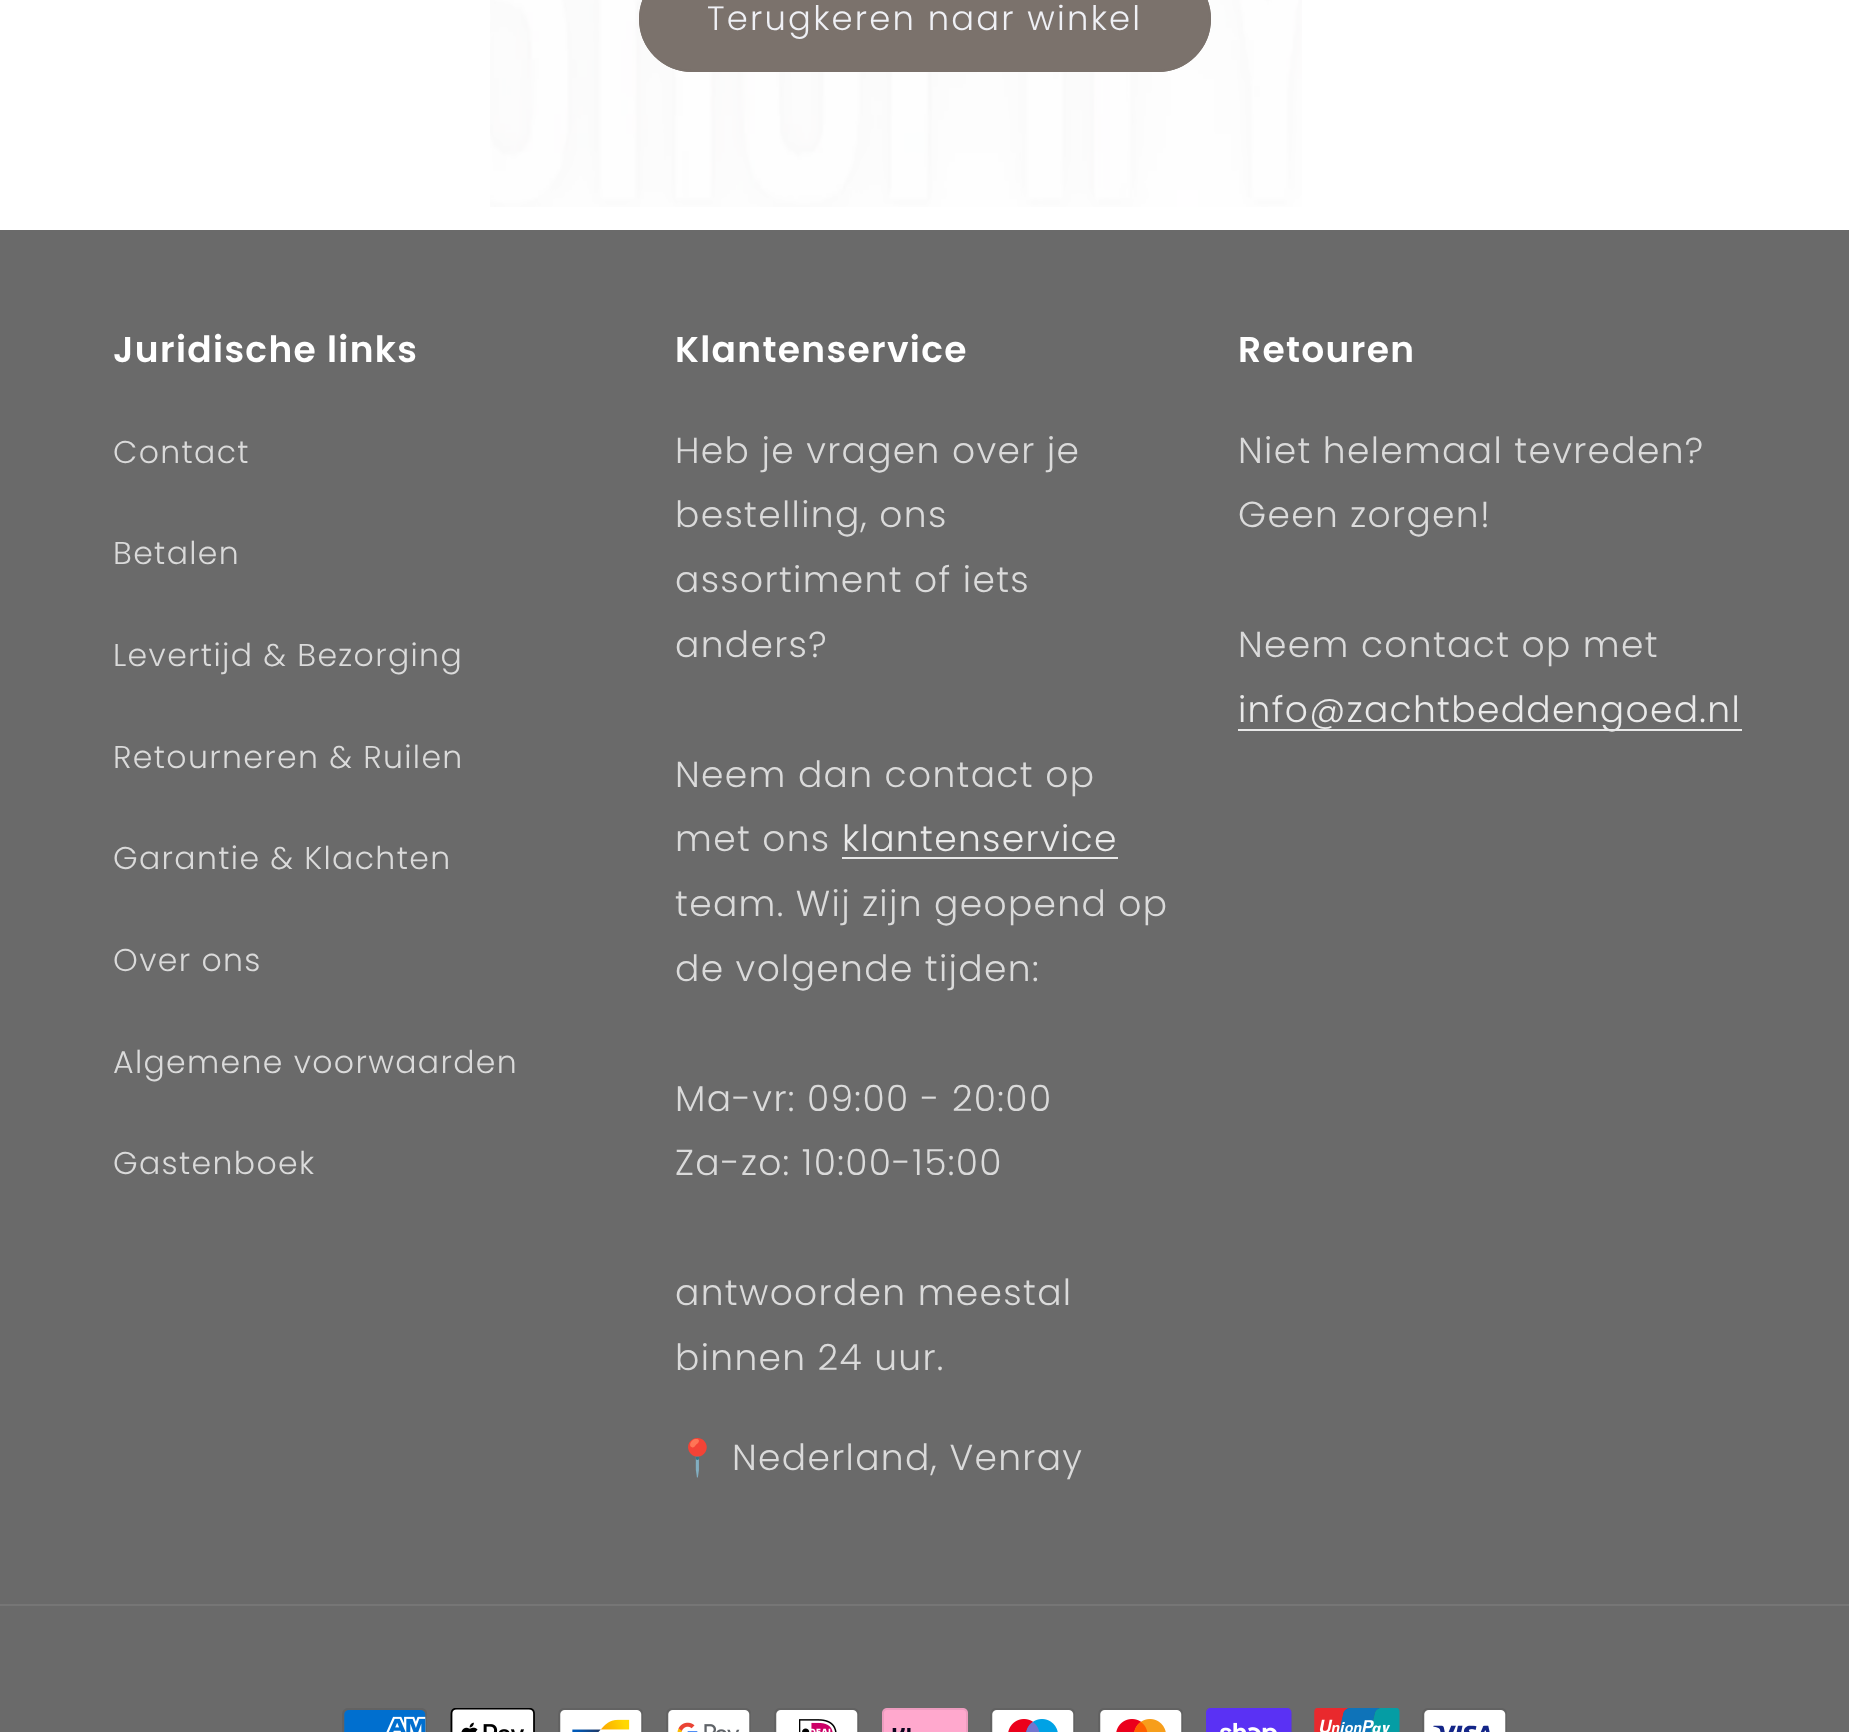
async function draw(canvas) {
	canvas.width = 1849;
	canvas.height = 1732;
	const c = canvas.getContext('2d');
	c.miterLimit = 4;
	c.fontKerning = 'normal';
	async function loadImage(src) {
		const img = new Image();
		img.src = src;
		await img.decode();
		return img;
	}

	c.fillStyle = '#fff';
	c.fillRect(0, 0, 1849, 1732);
	c.drawImage(await loadImage('img1.png'), 490, 0, 812, 207);
	c.fillStyle = '#7b726c';
	c.beginPath();
	c.roundRect(639, -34, 572, 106, 53);
	c.fill();
	c.beginPath();
	c.roundRect(640, -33, 570, 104, 52);
	c.strokeStyle = '#7b726c';
	c.lineWidth = 2;
	c.stroke();
	c.letterSpacing = '2.25px';
	c.font = '300 33.75px Poppins';
	c.fillStyle = '#eff0f5';
	c.fillText('Terugkeren naar winkel', 707, 30);
	c.fillStyle = '#6a6a6a';
	c.fillRect(0, 230, 1849, 1502);
	c.letterSpacing = '1.35px';
	c.font = '600 36px Poppins';
	c.fillStyle = '#fff';
	c.fillText('Juridische links', 113, 362);
	c.font = '300 31.5px Poppins';
	c.fillStyle = '#dadada';
	for (const [text, x, y] of [
		['Contact', 113, 463],
		['Betalen', 113, 564],
		['Levertijd & Bezorging', 113, 666],
		['Retourneren & Ruilen', 113, 768],
		['Garantie & Klachten', 113, 869],
		['Over ons', 113, 971],
		['Algemene voorwaarden', 113, 1073],
		['Gastenboek', 113, 1174],
	]) {
		c.fillText(text, x, y);
	}
	c.font = '600 36px Poppins';
	c.fillStyle = '#fff';
	c.fillText('Klantenservice', 675, 362);
	c.font = '300 36px Poppins';
	c.fillStyle = '#dadada';
	for (const [text, x, y] of [
		['Heb je vragen over je', 675, 463],
		['bestelling, ons', 675, 527],
		['assortiment of iets', 675, 592],
		['anders?', 675, 657],
		['Neem dan contact op', 675, 787],
		['met ons', 675, 851],
	]) {
		c.fillText(text, x, y);
	}
	c.fillStyle = '#e9e9e9';
	c.fillText('klantenservice', 842, 851);
	c.fillRect(842, 857, 276, 2);
	c.fillStyle = '#dadada';
	for (const [text, x, y] of [
		['team. Wij zijn geopend op', 675, 916],
		['de volgende tijden:', 675, 981],
		['Ma-vr: 09:00 - 20:00', 675, 1111],
		['Za-zo: 10:00-15:00', 675, 1175],
		['antwoorden meestal', 675, 1305],
		['binnen 24 uur.', 675, 1370],
	]) {
		c.fillText(text, x, y);
	}
	c.font = '36px Noto Color Emoji';
	c.fillText('📍', 675, 1470);
	c.font = '300 36px Poppins';
	c.fillText('Nederland, Venray', 732, 1470);
	c.font = '600 36px Poppins';
	c.fillStyle = '#fff';
	c.fillText('Retouren', 1238, 362);
	c.font = '300 36px Poppins';
	c.fillStyle = '#dadada';
	for (const [text, x, y] of [
		['Niet helemaal tevreden?', 1238, 463],
		['Geen zorgen!', 1238, 527],
		['Neem contact op met', 1238, 657],
	]) {
		c.fillText(text, x, y);
	}
	c.fillStyle = '#e9e9e9';
	c.fillRect(1238, 729, 504, 2);
	c.fillText('info@zachtbeddengoed.nl', 1238, 722);
	c.fillStyle = '#767676';
	c.fillRect(0, 1604, 1849, 2);
	c.drawImage(await loadImage('img2.png'), 342, 1708, 85, 24);
	c.drawImage(await loadImage('img3.png'), 450, 1708, 85, 24);
	c.drawImage(await loadImage('img4.png'), 558, 1708, 85, 24);
	c.drawImage(await loadImage('img5.png'), 666, 1708, 85, 24);
	c.drawImage(await loadImage('img6.png'), 774, 1708, 85, 24);
	c.drawImage(await loadImage('img7.png'), 882, 1708, 86, 24);
	c.drawImage(await loadImage('img8.png'), 990, 1708, 85, 24);
	c.drawImage(await loadImage('img9.png'), 1098, 1708, 85, 24);
	c.drawImage(await loadImage('img10.png'), 1206, 1708, 86, 24);
	c.drawImage(await loadImage('img11.png'), 1314, 1708, 86, 24);
	c.drawImage(await loadImage('img12.png'), 1422, 1708, 85, 24);
}

draw(document.querySelector('canvas'));
